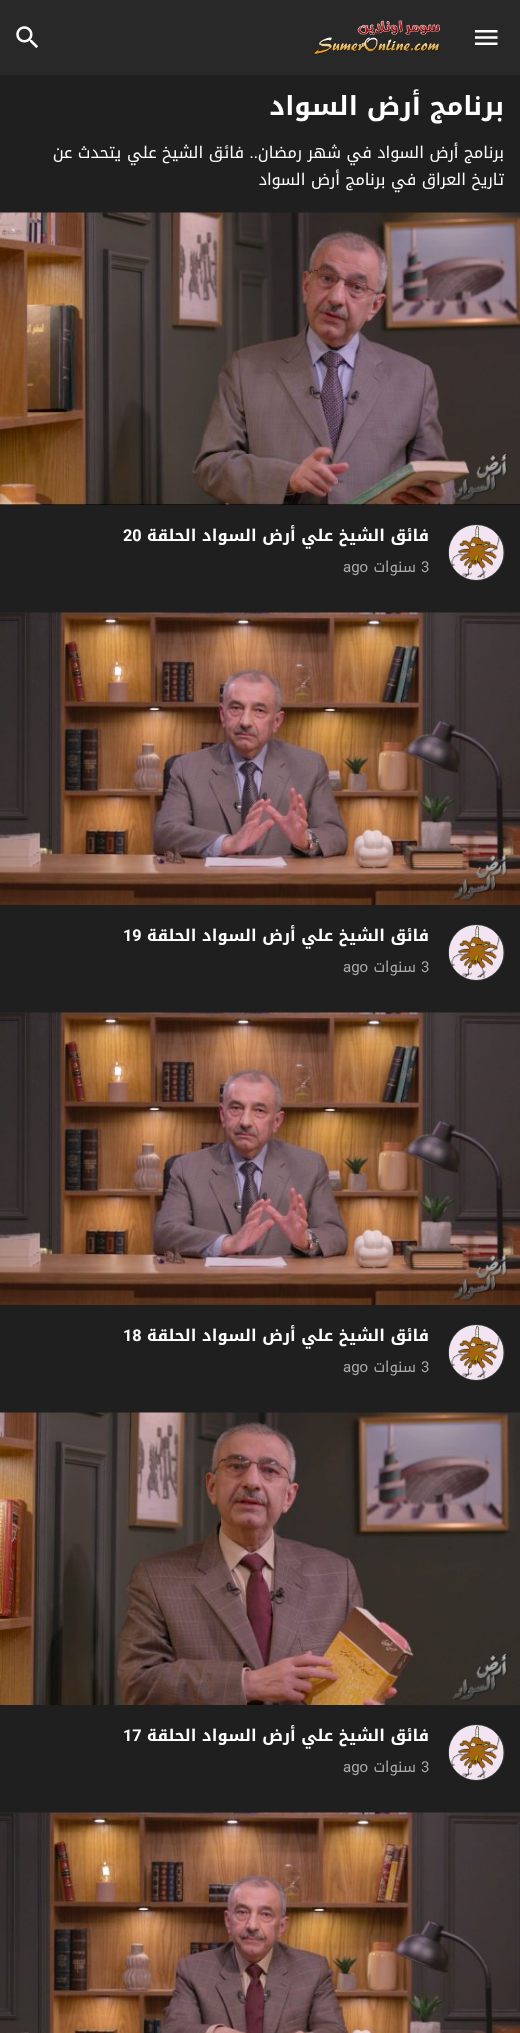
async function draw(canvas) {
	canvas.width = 520;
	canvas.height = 2033;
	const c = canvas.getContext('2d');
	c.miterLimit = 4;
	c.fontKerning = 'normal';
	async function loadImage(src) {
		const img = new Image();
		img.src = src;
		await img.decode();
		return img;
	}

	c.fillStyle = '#1f1f1f';
	c.fillRect(0, 0, 520, 2033);
	c.fillStyle = '#282828';
	c.fillRect(0, 0, 520, 75);
	c.drawImage(await loadImage('img1.png'), 475, 30, 23, 15);
	c.drawImage(await loadImage('img2.png'), 314, 20, 126, 35);
	c.drawImage(await loadImage('img3.png'), 16, 26, 22, 22);
	c.direction = 'rtl';
	c.font = 'bold 26.25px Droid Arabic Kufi';
	c.fillStyle = '#fff';
	c.fillText('برنامج أرض السواد', 504, 115);
	c.font = '16.25px Droid Arabic Kufi';
	c.fillText('برنامج أرض السواد في شهر رمضان', 504, 158);
	c.font = '16.25px Roboto';
	c.fillText('..', 258, 158);
	c.font = '16.25px Droid Arabic Kufi';
	c.fillText('فائق الشيخ علي يتحدث عن', 244, 158);
	c.fillText('تاريخ العراق في برنامج أرض السواد', 504, 185);
	c.drawImage(await loadImage('img4.png'), 0, 212, 520, 293);
	c.beginPath();
	c.arc(476.5, 552.5, 28, 0, 2 * Math.PI);
	c.strokeStyle = '#333';
	c.stroke();
	c.drawImage(await loadImage('img5.png'), 448, 525, 56, 55);
	c.font = 'bold 16.25px Droid Arabic Kufi';
	c.fillText('فائق الشيخ علي أرض السواد الحلقة', 429, 541);
	c.direction = 'ltr';
	c.font = 'bold 16.25px Roboto';
	c.fillText('20', 123, 541);
	c.font = '15px Roboto';
	c.fillStyle = '#aaa';
	c.fillText('3', 421, 572);
	c.direction = 'rtl';
	c.font = '15px Droid Arabic Kufi';
	c.fillText('سنوات', 416, 572);
	c.direction = 'ltr';
	c.font = '15px Roboto';
	c.fillText('ago', 343, 572);
	c.drawImage(await loadImage('img6.png'), 0, 612, 520, 293);
	c.beginPath();
	c.arc(476.5, 952.5, 28, 0, 2 * Math.PI);
	c.stroke();
	c.drawImage(await loadImage('img5.png'), 448, 925, 56, 55);
	c.direction = 'rtl';
	c.font = 'bold 16.25px Droid Arabic Kufi';
	c.fillStyle = '#fff';
	c.fillText('فائق الشيخ علي أرض السواد الحلقة', 429, 941);
	c.direction = 'ltr';
	c.font = 'bold 16.25px Roboto';
	c.fillText('19', 123, 941);
	c.font = '15px Roboto';
	c.fillStyle = '#aaa';
	c.fillText('3', 421, 972);
	c.direction = 'rtl';
	c.font = '15px Droid Arabic Kufi';
	c.fillText('سنوات', 416, 972);
	c.direction = 'ltr';
	c.font = '15px Roboto';
	c.fillText('ago', 343, 972);
	c.drawImage(await loadImage('img7.png'), 0, 1012, 520, 293);
	c.beginPath();
	c.arc(476.5, 1352.5, 28, 0, 2 * Math.PI);
	c.stroke();
	c.drawImage(await loadImage('img5.png'), 448, 1325, 56, 55);
	c.direction = 'rtl';
	c.font = 'bold 16.25px Droid Arabic Kufi';
	c.fillStyle = '#fff';
	c.fillText('فائق الشيخ علي أرض السواد الحلقة', 429, 1341);
	c.direction = 'ltr';
	c.font = 'bold 16.25px Roboto';
	c.fillText('18', 123, 1341);
	c.font = '15px Roboto';
	c.fillStyle = '#aaa';
	c.fillText('3', 421, 1372);
	c.direction = 'rtl';
	c.font = '15px Droid Arabic Kufi';
	c.fillText('سنوات', 416, 1372);
	c.direction = 'ltr';
	c.font = '15px Roboto';
	c.fillText('ago', 343, 1372);
	c.drawImage(await loadImage('img8.png'), 0, 1412, 520, 293);
	c.beginPath();
	c.arc(476.5, 1752.5, 28, 0, 2 * Math.PI);
	c.stroke();
	c.drawImage(await loadImage('img9.png'), 448, 1725, 56, 55);
	c.direction = 'rtl';
	c.font = 'bold 16.25px Droid Arabic Kufi';
	c.fillStyle = '#fff';
	c.fillText('فائق الشيخ علي أرض السواد الحلقة', 429, 1741);
	c.direction = 'ltr';
	c.font = 'bold 16.25px Roboto';
	c.fillText('17', 123, 1741);
	c.font = '15px Roboto';
	c.fillStyle = '#aaa';
	c.fillText('3', 421, 1772);
	c.direction = 'rtl';
	c.font = '15px Droid Arabic Kufi';
	c.fillText('سنوات', 416, 1772);
	c.direction = 'ltr';
	c.font = '15px Roboto';
	c.fillText('ago', 343, 1772);
	c.drawImage(await loadImage('img10.png'), 0, 1812, 520, 221);
}

draw(document.querySelector('canvas'));
